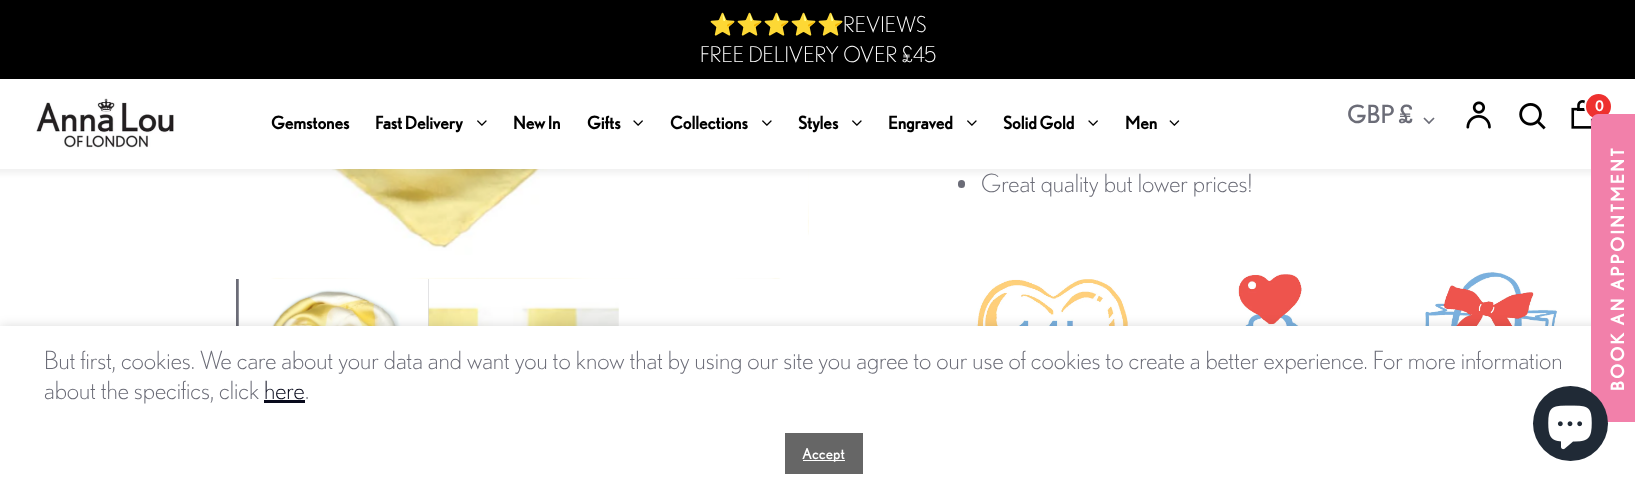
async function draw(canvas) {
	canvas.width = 1635;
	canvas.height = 487;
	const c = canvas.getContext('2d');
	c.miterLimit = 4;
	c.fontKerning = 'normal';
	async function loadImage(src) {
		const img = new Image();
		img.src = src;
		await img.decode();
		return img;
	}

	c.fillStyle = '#fff';
	c.fillRect(0, 0, 1635, 487);
	c.fillStyle = '#000';
	c.fillRect(0, 0, 1635, 79);
	c.font = '21.75px Noto Color Emoji';
	c.fillStyle = '#fff';
	c.fillText('⭐️⭐️⭐️⭐️⭐️', 709, 32);
	c.font = '300 21.75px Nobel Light';
	c.fillText('REVIEWS', 843, 32);
	c.fillText('FREE DELIVERY OVER £45', 700, 62);
	c.drawImage(await loadImage('img8.png'), 175, 169, 634, 110);
	c.drawImage(await loadImage('img9.png'), 175, 169, 634, 110);
	c.fillStyle = '#6b6c77';
	c.beginPath();
	c.roundRect(958, 180, 7, 8, 3.5);
	c.fill();
	c.fillStyle = '#0000000d';
	c.filter = 'blur(2.5px)';
	c.beginPath();
	c.rect(-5, 74, 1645, 100);
	c.fill();
	c.filter = 'none';
	c.fillStyle = '#fff';
	c.fillRect(0, 79, 1635, 90);
	c.drawImage(await loadImage('img1.png'), 36, 98, 138, 50);
	c.font = 'bold 17.5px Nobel';
	c.fillStyle = '#000';
	c.fillText('Gemstones', 271, 129);
	c.fillText('Fast Delivery', 375, 129);
	c.drawImage(await loadImage('img2.png'), 477, 120, 10, 6);
	c.fillText('New In', 513, 129);
	c.fillText('Gifts', 587, 129);
	c.drawImage(await loadImage('img3.png'), 633, 120, 10, 6);
	c.fillText('Collections', 670, 129);
	c.drawImage(await loadImage('img2.png'), 762, 120, 10, 6);
	c.fillText('Styles', 798, 129);
	c.drawImage(await loadImage('img2.png'), 852, 120, 10, 6);
	c.fillText('Engraved', 888, 129);
	c.drawImage(await loadImage('img2.png'), 967, 120, 10, 6);
	c.fillText('Solid Gold', 1003, 129);
	c.drawImage(await loadImage('img3.png'), 1088, 120, 10, 6);
	c.fillText('Men', 1125, 129);
	c.drawImage(await loadImage('img4.png'), 1169, 120, 11, 6);
	c.font = '25px Nobel';
	c.fillStyle = '#6b6c77';
	c.fillText('GBP £', 1347, 123);
	c.beginPath();
	c.moveTo(1424, 118);
	c.lineTo(1429, 123);
	c.lineTo(1434, 118);
	c.strokeStyle = '#6b6c77';
	c.lineWidth = 1.7;
	c.stroke();
	c.drawImage(await loadImage('img5.png'), 1466, 101, 25, 28);
	c.drawImage(await loadImage('img6.png'), 1519, 103, 27, 27);
	c.drawImage(await loadImage('img7.png'), 1571, 100, 21, 29);
	c.beginPath();
	c.arc(1599, 106, 13.5, 0, 2 * Math.PI);
	c.strokeStyle = '#fff';
	c.lineWidth = 3;
	c.stroke();
	c.fillStyle = '#ee312f';
	c.beginPath();
	c.arc(1598.5, 106.5, 12.5, 0, 2 * Math.PI);
	c.fill();
	c.font = 'bold 14px Nobel';
	c.fillStyle = '#fff';
	c.fillText('0', 1595, 111);
	c.save();
	c.beginPath();
	c.rect(50, 279, 759, 190);
	c.clip();
	c.strokeStyle = '#6b6c77';
	c.strokeRect(237.5, 277.5, 192, 192);
	c.restore();
	c.drawImage(await loadImage('img10.png'), 238, 279, 191, 47);
	c.drawImage(await loadImage('img11.png'), 428, 278, 191, 48);
	c.font = '300 25px Nobel Light';
	c.fillStyle = '#6b6c77';
	c.fillText('Great quality but lower prices!', 981, 192);
	c.drawImage(await loadImage('img12.png'), 976, 279, 152, 47);
	c.drawImage(await loadImage('img13.png'), 1216, 274, 110, 52);
	c.drawImage(await loadImage('img14.png'), 1411, 272, 152, 54);
	c.fillStyle = '#00000024';
	c.filter = 'blur(5.5px)';
	c.beginPath();
	c.rect(0, 326, 1635, 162);
	c.fill();
	c.filter = 'none';
	c.fillStyle = '#fff';
	c.fillRect(0, 326, 1635, 161);
	c.fillStyle = '#f280aa';
	c.beginPath();
	c.moveTo(1591, 414);
	c.lineTo(1591, 122);
	c.bezierCurveTo(1591, 118, 1594, 114, 1598, 114);
	c.lineTo(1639, 114);
	c.lineTo(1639, 422);
	c.lineTo(1598, 422);
	c.bezierCurveTo(1594, 422, 1591, 419, 1591, 414);
	c.closePath();
	c.fill();
	c.letterSpacing = '2.5px';
	c.font = 'bold 17.5px Nobel';
	c.fillStyle = '#fff';
	c.save();
	c.translate(1624, 391);
	c.rotate(-90 * Math.PI / 180);
	c.fillText('BOOK AN APPOINTMENT', 0, 0);
	c.restore();
	c.letterSpacing = '0px';
	c.font = '300 25px Nobel Light';
	c.fillStyle = '#6b6c77';
	c.fillText('But first, cookies. We care about your data and want you to know that by using our site you agree to our use of cookies to create a better experience. For more information', 44, 369);
	c.fillText('about the specifics, click', 44, 399);
	c.fillStyle = '#080a1c';
	c.fillText('here', 264, 399);
	c.fillRect(264, 400, 41, 3);
	c.fillStyle = '#6b6c77';
	c.fillText('.', 305, 399);
	c.fillStyle = '#666';
	c.fillRect(785, 433, 78, 41);
	c.fillStyle = '#fff';
	c.fillRect(803, 460, 42, 1);
	c.font = '15px Nobel';
	c.fillText('Accept', 802, 459);
	c.fillStyle = '#202a36';
	c.beginPath();
	c.arc(1570.5, 423.5, 37.5, 0, 2 * Math.PI);
	c.fill();
	c.drawImage(await loadImage('img15.png'), 1548, 405, 44, 45);
}

draw(document.querySelector('canvas'));
